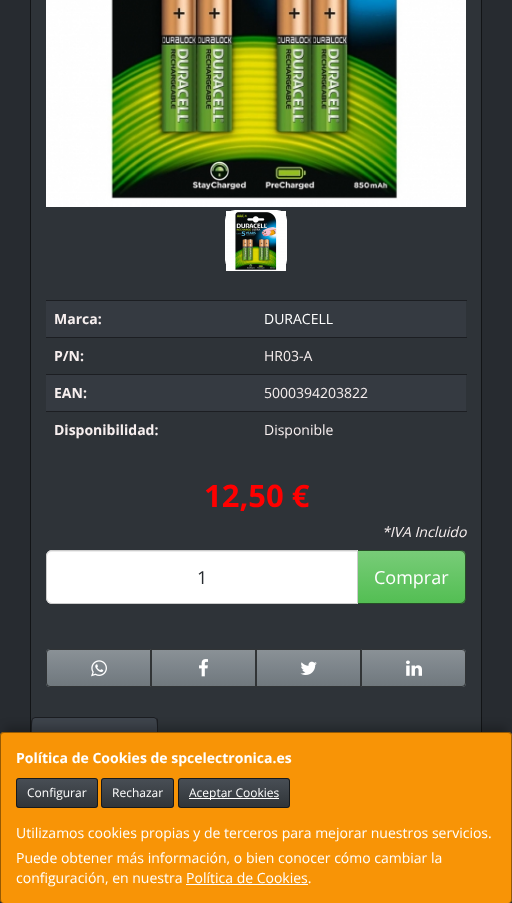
async function draw(canvas) {
	canvas.width = 512;
	canvas.height = 903;
	const c = canvas.getContext('2d');
	c.miterLimit = 4;
	c.fontKerning = 'normal';
	async function loadImage(src) {
		const img = new Image();
		img.src = src;
		await img.decode();
		return img;
	}
	let gradient;

	c.fillStyle = '#272b30';
	c.fillRect(0, 0, 512, 903);
	c.fillStyle = '#2e3338';
	c.fillRect(31, 0, 450, 732);
	c.strokeStyle = '#121416';
	c.strokeRect(30.5, -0.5, 451, 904);
	c.drawImage(await loadImage('img1.png'), 46, 0, 420, 207);
	c.beginPath();
	c.roundRect(225.5, 210.5, 61, 59, 9.5);
	c.strokeStyle = '#fff';
	c.stroke();
	c.drawImage(await loadImage('img2.png'), 226, 211, 60, 60);
	c.fillStyle = '#353a41';
	c.fillRect(46, 301, 420, 36);
	c.font = 'bold 14px Open Sans';
	c.fillStyle = '#f7efef';
	c.fillText('Marca:', 54, 324);
	c.fillStyle = '#1c1e22';
	c.fillRect(46, 300, 421, 1);
	c.font = '14px Open Sans';
	c.fillStyle = '#fff';
	c.fillText('DURACELL', 264, 324);
	c.font = 'bold 14px Open Sans';
	c.fillStyle = '#f7efef';
	c.fillText('P/N:', 54, 361);
	c.fillStyle = '#1c1e22';
	c.fillRect(46, 337, 421, 1);
	c.font = '14px Open Sans';
	c.fillStyle = '#f7efef';
	c.fillText('HR03-A', 264, 361);
	c.fillStyle = '#353a41';
	c.fillRect(46, 375, 420, 36);
	c.font = 'bold 14px Open Sans';
	c.fillStyle = '#f7efef';
	c.fillText('EAN:', 54, 398);
	c.fillStyle = '#1c1e22';
	c.fillRect(46, 374, 421, 1);
	c.font = '14px Open Sans';
	c.fillStyle = '#f7efef';
	c.fillText('5000394203822', 264, 398);
	c.font = 'bold 14px Open Sans';
	c.fillText('Disponibilidad:', 54, 435);
	c.fillStyle = '#1c1e22';
	c.fillRect(46, 411, 421, 1);
	c.font = '14px Open Sans';
	c.fillStyle = '#f7efef';
	c.fillText('Disponible', 264, 435);
	c.font = 'bold 31px Open Sans';
	c.fillStyle = '#f00';
	c.fillText('12,50 €', 204, 507);
	c.font = 'italic 14px Open Sans';
	c.fillStyle = '#f7efef';
	c.fillText('*IVA Incluido', 382, 537);
	c.fillStyle = '#62c462';
	c.beginPath();
	c.roundRect(357, 550, 109, 54, [0, 6, 6, 0]);
	c.fill();
	c.save();
	c.beginPath();
	c.roundRect(357, 550, 109, 54, [0, 6, 6, 0]);
	c.clip();
	gradient = c.createLinearGradient(412, 551, 412, 603);
	gradient.addColorStop(0, '#78cc78');
	gradient.addColorStop(0.6, '#62c462');
	gradient.addColorStop(1, '#53be53');
	c.fillStyle = gradient;
	c.fillRect(358, 551, 107, 52);
	c.restore();
	c.beginPath();
	c.roundRect(357.5, 550.5, 108, 53, [0, 5.5, 5.5, 0]);
	c.strokeStyle = '#00000099';
	c.stroke();
	c.fillStyle = '#fff';
	c.beginPath();
	c.roundRect(46, 550, 312, 54, [6, 0, 0, 6]);
	c.fill();
	c.fillStyle = '#ececec';
	c.beginPath();
	c.moveTo(52, 552);
	c.lineTo(357, 552);
	c.lineTo(357, 551);
	c.lineTo(52, 551);
	c.bezierCurveTo(49, 551, 47, 554, 47, 557);
	c.bezierCurveTo(47, 554, 49, 552, 52, 552);
	c.closePath();
	c.fill();
	c.beginPath();
	c.roundRect(46.5, 550.5, 311, 53, [5.5, 0, 0, 5.5]);
	c.strokeStyle = '#ccc';
	c.stroke();
	c.font = '18px Open Sans';
	c.fillStyle = '#272b30';
	c.fillText('1', 197, 584);
	c.fillStyle = '#fff';
	c.fillText('Comprar', 374, 584);
	c.fillStyle = '#7a8288';
	c.beginPath();
	c.roundRect(46, 649, 105, 38, [4, 0, 0, 4]);
	c.fill();
	gradient = c.createLinearGradient(99, 650, 99, 686);
	gradient.addColorStop(0, '#8a9196');
	gradient.addColorStop(0.6, '#7a8288');
	gradient.addColorStop(1, '#70787d');
	c.fillStyle = gradient;
	c.fillRect(47, 650, 103, 36);
	c.beginPath();
	c.roundRect(46.5, 649.5, 104, 37, [3.5, 0, 0, 3.5]);
	c.strokeStyle = '#00000099';
	c.stroke();
	c.drawImage(await loadImage('img3.png'), 91, 660, 16, 17);
	gradient = c.createLinearGradient(204, 650, 204, 686);
	gradient.addColorStop(0, '#8a9196');
	gradient.addColorStop(0.6, '#7a8288');
	gradient.addColorStop(1, '#70787d');
	c.fillStyle = gradient;
	c.fillRect(152, 650, 103, 36);
	c.strokeStyle = '#313436';
	c.strokeRect(151.5, 649.5, 104, 37);
	c.drawImage(await loadImage('img4.png'), 199, 659, 9, 18);
	gradient = c.createLinearGradient(309, 650, 309, 686);
	gradient.addColorStop(0, '#8a9196');
	gradient.addColorStop(0.6, '#7a8288');
	gradient.addColorStop(1, '#70787d');
	c.fillStyle = gradient;
	c.fillRect(257, 650, 103, 36);
	c.strokeRect(256.5, 649.5, 104, 37);
	c.drawImage(await loadImage('img5.png'), 300, 661, 17, 14);
	c.fillStyle = '#7a8288';
	c.beginPath();
	c.roundRect(361, 649, 105, 38, [0, 4, 4, 0]);
	c.fill();
	gradient = c.createLinearGradient(414, 650, 414, 686);
	gradient.addColorStop(0, '#8a9196');
	gradient.addColorStop(0.6, '#7a8288');
	gradient.addColorStop(1, '#70787d');
	c.fillStyle = gradient;
	c.fillRect(362, 650, 103, 36);
	c.beginPath();
	c.roundRect(361.5, 649.5, 104, 37, [0, 3.5, 3.5, 0]);
	c.strokeStyle = '#00000099';
	c.stroke();
	c.drawImage(await loadImage('img6.png'), 406, 660, 16, 16);
	c.fillStyle = '#3e444c';
	c.beginPath();
	c.roundRect(31, 717, 127, 42, [4, 4, 0, 0]);
	c.fill();
	c.fillStyle = '#1c1e22';
	c.beginPath();
	c.moveTo(35, 717);
	c.lineTo(32, 718);
	c.lineTo(33, 719);
	c.lineTo(35, 718);
	c.lineTo(154, 718);
	c.lineTo(156, 719);
	c.lineTo(157, 718);
	c.lineTo(154, 717);
	c.closePath();
	c.fill();
	c.beginPath();
	c.moveTo(158, 759);
	c.lineTo(158, 721);
	c.bezierCurveTo(158, 720, 158, 719, 157, 718);
	c.lineTo(156, 719);
	c.bezierCurveTo(158, 721, 157, 753, 157, 758);
	c.closePath();
	c.fill();
	c.beginPath();
	c.moveTo(31, 759);
	c.lineTo(32, 758);
	c.bezierCurveTo(32, 753, 31, 721, 33, 719);
	c.lineTo(32, 718);
	c.lineTo(31, 721);
	c.closePath();
	c.fill();
	c.fillStyle = '#00000040';
	c.filter = 'blur(5px)';
	c.beginPath();
	c.rect(5, 727, 502, 161);
	c.fill();
	c.filter = 'none';
	c.fillStyle = '#f89406';
	c.beginPath();
	c.roundRect(0, 732, 512, 171, 4);
	c.fill();
	c.fillStyle = '#00000066';
	c.beginPath();
	c.moveTo(4, 732);
	c.lineTo(508, 732);
	c.bezierCurveTo(510, 732, 512, 734, 512, 736);
	c.lineTo(512, 899);
	c.bezierCurveTo(512, 901, 510, 903, 508, 903);
	c.lineTo(4, 903);
	c.bezierCurveTo(2, 903, 0, 901, 0, 899);
	c.lineTo(0, 736);
	c.bezierCurveTo(0, 734, 2, 732, 4, 732);
	c.closePath();
	c.moveTo(4, 733);
	c.lineTo(508, 733);
	c.bezierCurveTo(510, 733, 511, 734, 511, 736);
	c.lineTo(511, 899);
	c.bezierCurveTo(511, 901, 510, 903, 508, 903);
	c.lineTo(4, 903);
	c.bezierCurveTo(2, 903, 1, 901, 1, 899);
	c.lineTo(1, 736);
	c.bezierCurveTo(1, 734, 2, 733, 4, 733);
	c.closePath();
	c.fill('evenodd');
	c.font = 'bold 14px Open Sans';
	c.fillStyle = '#fff';
	c.fillText('Política de Cookies de spcelectronica.es', 16, 763);
	c.fillStyle = '#3a3f44';
	c.beginPath();
	c.roundRect(16, 778, 82, 30, 3);
	c.fill();
	gradient = c.createLinearGradient(57, 779, 57, 807);
	gradient.addColorStop(0, '#484e55');
	gradient.addColorStop(0.6, '#3a3f44');
	gradient.addColorStop(1, '#313539');
	c.fillStyle = gradient;
	c.fillRect(17, 779, 80, 28);
	c.beginPath();
	c.roundRect(16.5, 778.5, 81, 29, 2.5);
	c.stroke();
	c.font = '12px Open Sans';
	c.fillStyle = '#fff';
	c.fillText('Configurar', 27, 797);
	c.fillStyle = '#3a3f44';
	c.beginPath();
	c.roundRect(101, 778, 73, 30, 3);
	c.fill();
	gradient = c.createLinearGradient(138, 779, 138, 807);
	gradient.addColorStop(0, '#484e55');
	gradient.addColorStop(0.6, '#3a3f44');
	gradient.addColorStop(1, '#313539');
	c.fillStyle = gradient;
	c.fillRect(102, 779, 71, 28);
	c.beginPath();
	c.roundRect(101.5, 778.5, 72, 29, 2.5);
	c.stroke();
	c.fillStyle = '#fff';
	c.fillText('Rechazar', 112, 797);
	c.fillStyle = '#3a3f44';
	c.beginPath();
	c.roundRect(178, 778, 112, 30, 3);
	c.fill();
	gradient = c.createLinearGradient(234, 779, 234, 807);
	gradient.addColorStop(0, '#484e55');
	gradient.addColorStop(0.6, '#3a3f44');
	gradient.addColorStop(1, '#313539');
	c.fillStyle = gradient;
	c.fillRect(179, 779, 110, 28);
	c.beginPath();
	c.roundRect(178.5, 778.5, 111, 29, 2.5);
	c.stroke();
	c.fillStyle = '#fff';
	c.fillRect(189, 798, 90, 1);
	c.fillText('Aceptar Cookies', 189, 797);
	c.font = '14px Open Sans';
	for (const [text, x, y] of [
		['Utilizamos cookies propias y de terceros para mejorar nuestros servicios.', 16, 838],
		['Puede obtener más información, o bien conocer cómo cambiar la', 16, 863],
		['configuración, en nuestra Política de Cookies.', 16, 883],
	]) {
		c.fillText(text, x, y);
	}
	c.fillRect(186, 884, 122, 1);
}

draw(document.querySelector('canvas'));
